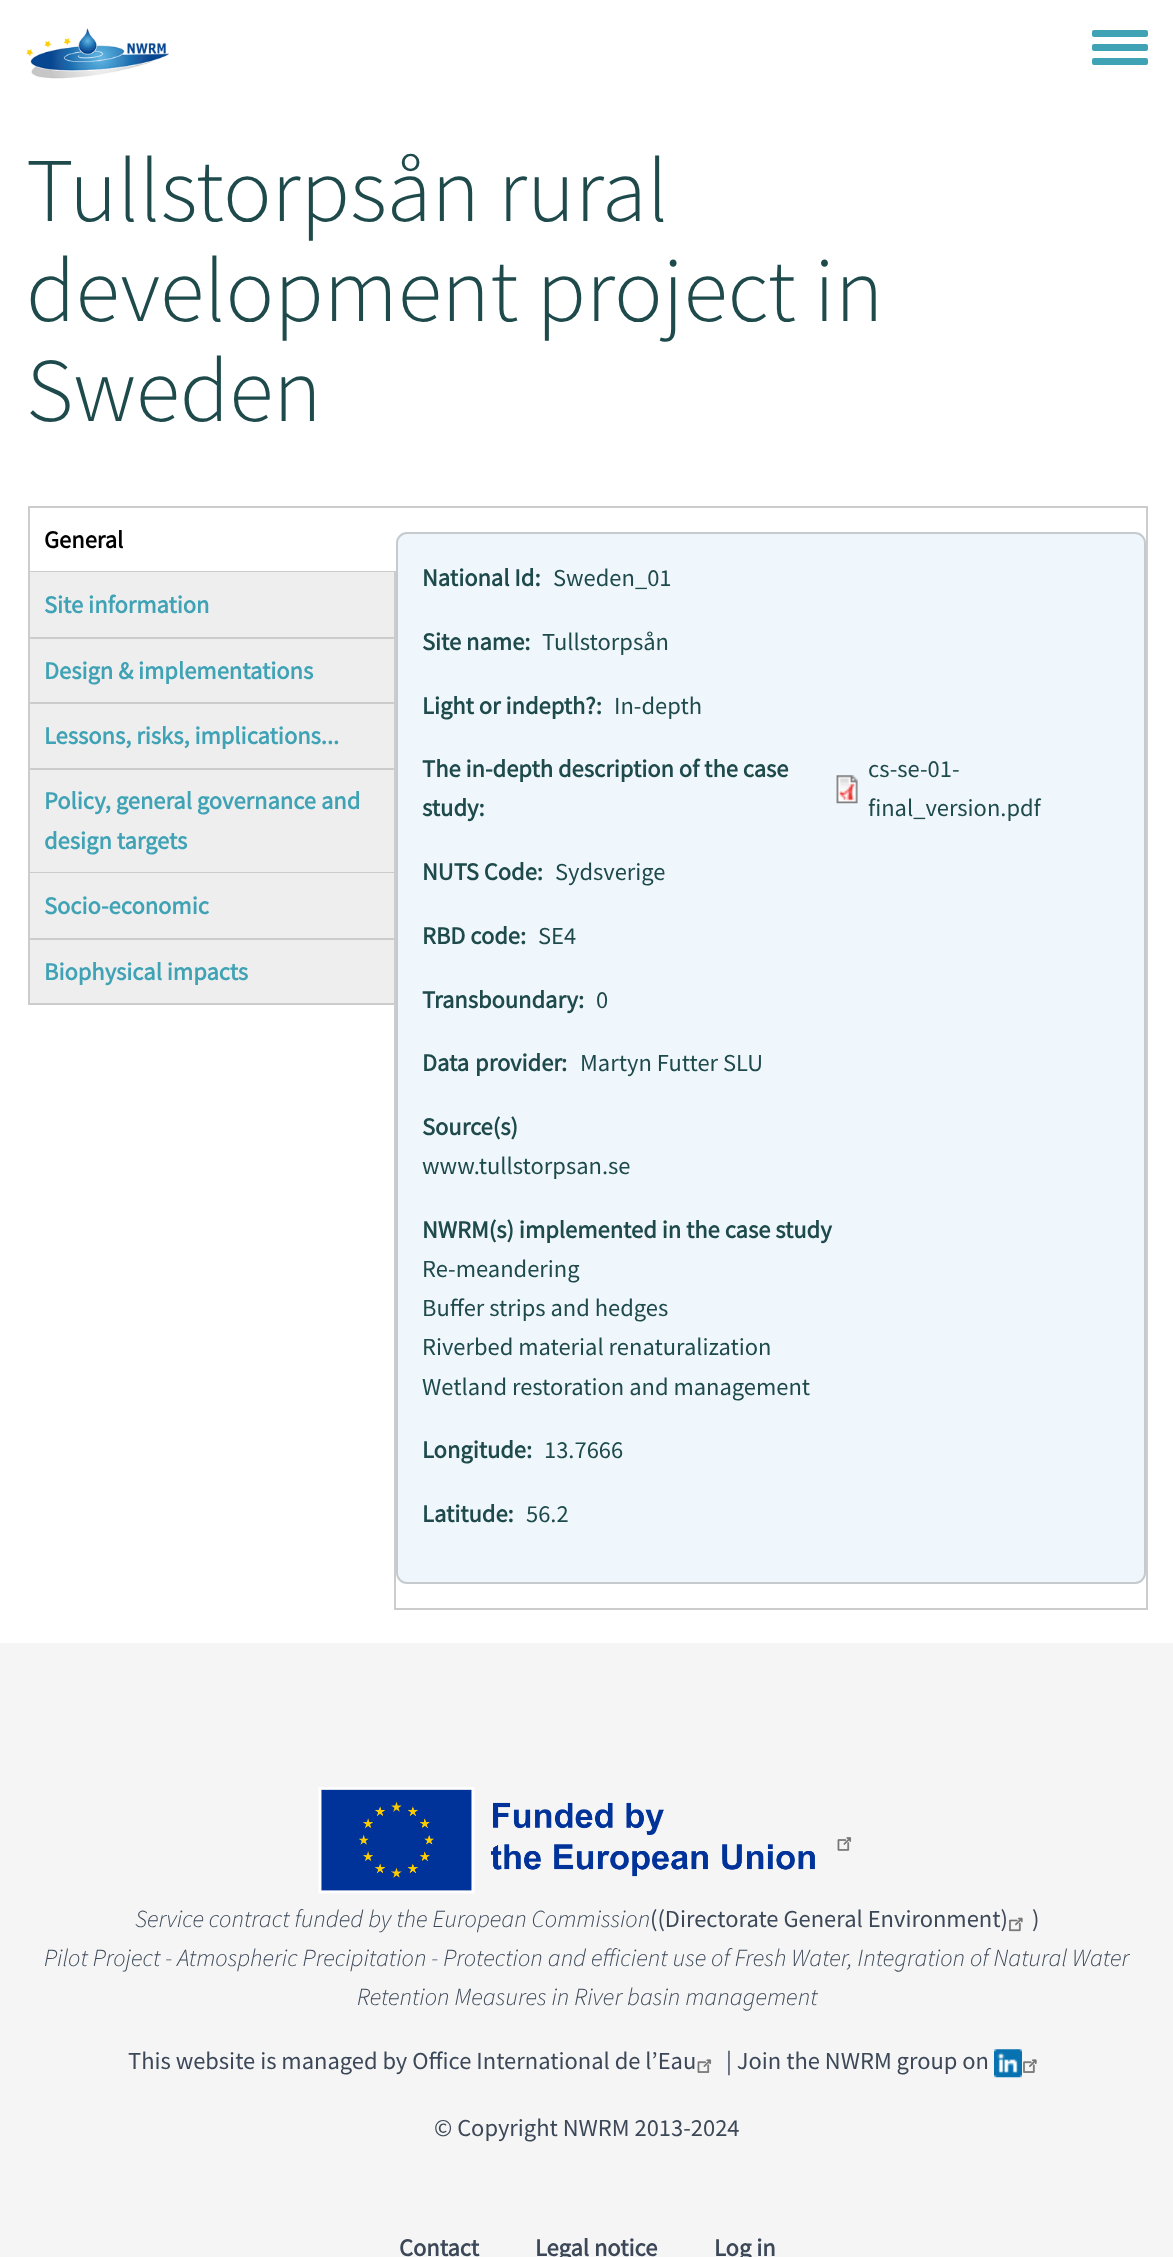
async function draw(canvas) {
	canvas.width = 1173;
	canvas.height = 2257;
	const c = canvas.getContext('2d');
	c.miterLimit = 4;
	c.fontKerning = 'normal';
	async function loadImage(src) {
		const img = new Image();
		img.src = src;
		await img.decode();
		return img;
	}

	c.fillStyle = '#fff';
	c.fillRect(0, 0, 1173, 2257);
	c.drawImage(await loadImage('img1.png'), 26, 28, 143, 51);
	c.fillStyle = '#3fa2b5';
	c.beginPath();
	c.roundRect(1092, 44, 56, 7, 2);
	c.fill();
	c.beginPath();
	c.roundRect(1092, 30, 56, 7, 2);
	c.fill();
	c.beginPath();
	c.roundRect(1092, 58, 56, 7, 2);
	c.fill();
	c.font = '300 91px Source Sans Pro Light';
	c.fillStyle = '#1e4a4c';
	for (const [text, x, y] of [
		['Tullstorpsån rural', 26, 221],
		['development project in', 26, 321],
		['Sweden', 26, 421],
	]) {
		c.fillText(text, x, y);
	}
	c.strokeStyle = '#ccc';
	c.lineWidth = 2;
	c.strokeRect(395, 507, 752, 1102);
	for (const [x, y, w, h, color] of [
		[28, 506, 368, 2, '#ccc'],
		[394, 508, 2, 63, '#fff'],
		[28, 571, 368, 1, '#ccc'],
		[28, 508, 2, 64, '#ccc'],
	]) {
		c.fillStyle = color;
		c.fillRect(x, y, w, h);
	}
	c.font = 'bold 24.5px Source Sans Pro';
	c.fillStyle = '#000';
	c.fillText('General', 44, 548);
	for (const [x, y, w, h, color] of [
		[30, 572, 364, 65, '#eee'],
		[28, 637, 368, 2, '#ccc'],
		[28, 572, 2, 67, '#ccc'],
	]) {
		c.fillStyle = color;
		c.fillRect(x, y, w, h);
	}
	c.fillStyle = '#3fa2b5';
	c.fillText('Site information', 44, 613);
	for (const [x, y, w, h, color] of [
		[30, 639, 364, 63, '#eee'],
		[28, 702, 368, 2, '#ccc'],
		[28, 639, 2, 65, '#ccc'],
	]) {
		c.fillStyle = color;
		c.fillRect(x, y, w, h);
	}
	c.fillStyle = '#3fa2b5';
	c.fillText('Design & implementations', 44, 679);
	for (const [x, y, w, h, color] of [
		[30, 704, 364, 64, '#eee'],
		[28, 768, 368, 2, '#ccc'],
		[28, 704, 2, 66, '#ccc'],
	]) {
		c.fillStyle = color;
		c.fillRect(x, y, w, h);
	}
	c.fillStyle = '#3fa2b5';
	c.fillText('Lessons, risks, implications...', 44, 744);
	for (const [x, y, w, h, color] of [
		[30, 770, 364, 102, '#eee'],
		[28, 872, 368, 1, '#ccc'],
		[28, 770, 2, 103, '#ccc'],
	]) {
		c.fillStyle = color;
		c.fillRect(x, y, w, h);
	}
	c.fillStyle = '#3fa2b5';
	c.fillText('Policy, general governance and', 44, 809);
	c.fillText('design targets', 44, 849);
	for (const [x, y, w, h, color] of [
		[30, 873, 364, 65, '#eee'],
		[28, 938, 368, 2, '#ccc'],
		[28, 873, 2, 67, '#ccc'],
	]) {
		c.fillStyle = color;
		c.fillRect(x, y, w, h);
	}
	c.fillStyle = '#3fa2b5';
	c.fillText('Socio-economic', 44, 914);
	for (const [x, y, w, h, color] of [
		[30, 940, 364, 63, '#eee'],
		[28, 1003, 368, 2, '#ccc'],
		[28, 940, 2, 65, '#ccc'],
	]) {
		c.fillStyle = color;
		c.fillRect(x, y, w, h);
	}
	c.fillStyle = '#3fa2b5';
	c.fillText('Biophysical impacts', 44, 980);
	c.fillStyle = '#f0f7fc';
	c.beginPath();
	c.roundRect(396, 532, 750, 1052, 11);
	c.fill();
	c.beginPath();
	c.roundRect(397, 533, 748, 1050, 10);
	c.strokeStyle = '#0000002e';
	c.stroke();
	c.fillStyle = '#1e4a4c';
	c.fillText('National Id:', 422, 586);
	c.font = '24.5px Source Sans Pro';
	c.fillText('Sweden_01', 553, 586);
	c.font = 'bold 24.5px Source Sans Pro';
	c.fillText('Site name:', 422, 650);
	c.font = '24.5px Source Sans Pro';
	c.fillText('Tullstorpsån', 542, 650);
	c.font = 'bold 24.5px Source Sans Pro';
	c.fillText('Light or indepth?:', 422, 714);
	c.font = '24.5px Source Sans Pro';
	c.fillText('In-depth', 614, 714);
	c.font = 'bold 24.5px Source Sans Pro';
	c.fillText('The in-depth description of the case', 422, 777);
	c.fillText('study:', 422, 816);
	c.drawImage(await loadImage('img2.png'), 836, 775, 22, 29);
	c.font = '24.5px Source Sans Pro';
	c.fillText('cs-se-01-', 868, 777);
	c.fillText('final_version.pdf', 868, 816);
	c.font = 'bold 24.5px Source Sans Pro';
	c.fillText('NUTS Code:', 422, 880);
	c.font = '24.5px Source Sans Pro';
	c.fillText('Sydsverige', 555, 880);
	c.font = 'bold 24.5px Source Sans Pro';
	c.fillText('RBD code:', 422, 944);
	c.font = '24.5px Source Sans Pro';
	c.fillText('SE4', 538, 944);
	c.font = 'bold 24.5px Source Sans Pro';
	c.fillText('Transboundary:', 422, 1008);
	c.font = '24.5px Source Sans Pro';
	c.fillText('0', 596, 1008);
	c.wordSpacing = '1px';
	c.font = 'bold 24.5px Source Sans Pro';
	c.fillText('Data provider', 422, 1071);
	c.wordSpacing = '0px';
	c.fillText(':', 561, 1071);
	c.font = '24.5px Source Sans Pro';
	c.fillText('Martyn Futter SLU', 580, 1071);
	c.font = 'bold 24.5px Source Sans Pro';
	c.fillText('Source(s)', 422, 1135);
	c.font = '24.5px Source Sans Pro';
	c.fillText('www.tullstorpsan.se', 422, 1174);
	c.font = 'bold 24.5px Source Sans Pro';
	c.fillText('NWRM(s) implemented in the case study', 422, 1238);
	c.font = '24.5px Source Sans Pro';
	for (const [text, x, y] of [
		['Re-meandering', 422, 1277],
		['Buffer strips and hedges', 422, 1316],
		['Riverbed material renaturalization', 422, 1355],
		['Wetland restoration and management', 422, 1395],
	]) {
		c.fillText(text, x, y);
	}
	c.font = 'bold 24.5px Source Sans Pro';
	c.fillText('Longitude:', 422, 1458);
	c.font = '24.5px Source Sans Pro';
	c.fillText('13.7666', 544, 1458);
	c.font = 'bold 24.5px Source Sans Pro';
	c.fillText('Latitude:', 422, 1522);
	c.font = '24.5px Source Sans Pro';
	c.fillText('56.2', 526, 1522);
	c.fillStyle = '#f5f5f5';
	c.fillRect(0, 1643, 1173, 614);
	c.drawImage(await loadImage('img3.png'), 318, 1787, 497, 107);
	c.drawImage(await loadImage('img4.png'), 837, 1837, 15, 14);
	c.font = 'italic 300 24.5px Source Sans Pro Light';
	c.fillStyle = '#3c4858';
	c.fillText('Service contract funded by the European Commission', 135, 1927);
	c.font = '24.5px Source Sans Pro';
	c.fillText('((Directorate General Environment)', 650, 1927);
	c.drawImage(await loadImage('img5.png'), 1009, 1917, 14, 15);
	c.fillText(')', 1032, 1927);
	c.font = 'italic 300 24.5px Source Sans Pro Light';
	c.fillText('Pilot Project - Atmospheric Precipitation - Protection and efficient use of Fresh Water, Integration of Natural Water', 44, 1966);
	c.fillText('Retention Measures in River basin management', 357, 2005);
	c.font = '24.5px Source Sans Pro';
	c.fillText('This website is managed by Office International de l’Eau', 128, 2069);
	c.drawImage(await loadImage('img6.png'), 697, 2059, 15, 14);
	c.fillText('| Join the NWRM group on', 726, 2069);
	c.drawImage(await loadImage('img7.png'), 994, 2049, 28, 29);
	c.drawImage(await loadImage('img8.png'), 1023, 2059, 14, 14);
	c.fillText('© Copyright NWRM 2013-2024', 434, 2136);
	c.font = 'bold 24.5px Source Sans Pro';
	for (const [text, x, y] of [
		['Contact', 399, 2256],
		['Legal notice', 535, 2256],
		['Log in', 714, 2256],
	]) {
		c.fillText(text, x, y);
	}
}

draw(document.querySelector('canvas'));
